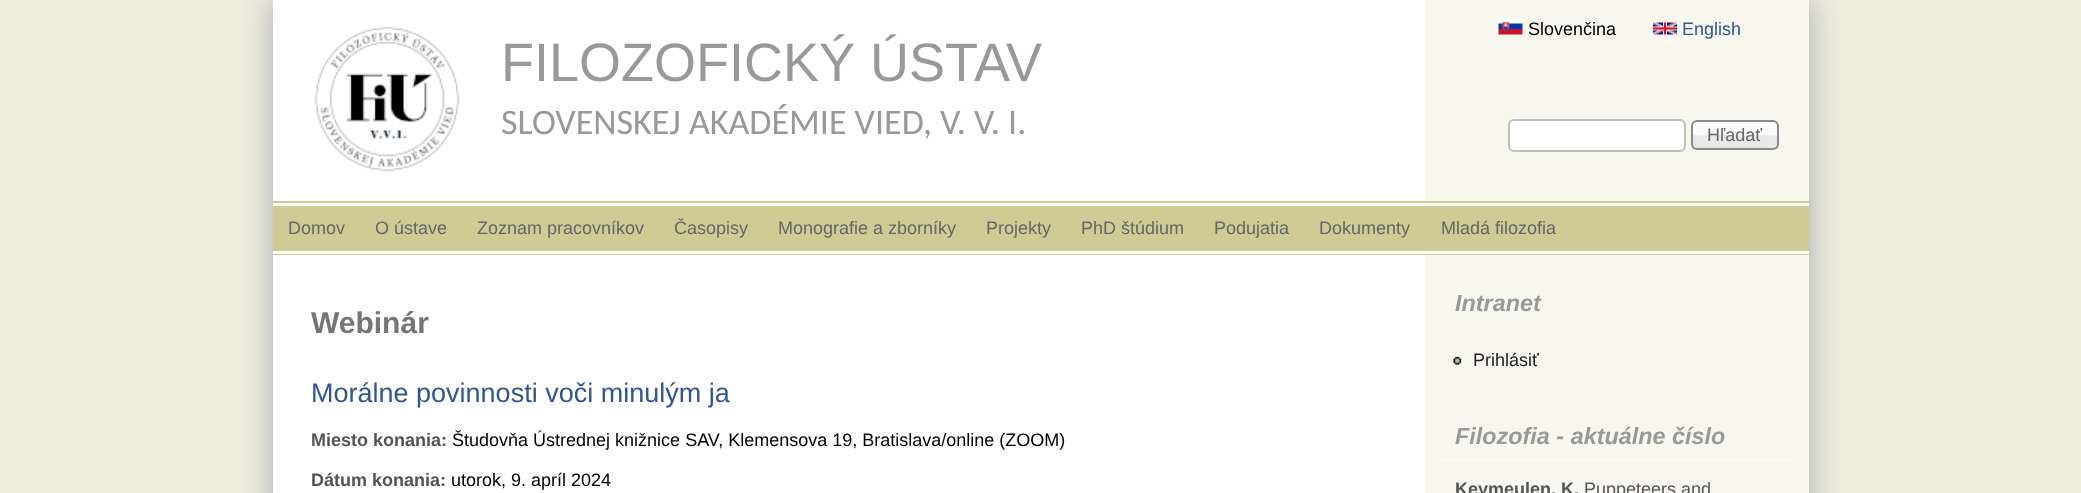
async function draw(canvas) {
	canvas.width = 2081;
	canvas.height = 493;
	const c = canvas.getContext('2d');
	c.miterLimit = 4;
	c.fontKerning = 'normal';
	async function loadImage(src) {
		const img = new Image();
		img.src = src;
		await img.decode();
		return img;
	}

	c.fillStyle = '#edecdd';
	c.fillRect(0, 0, 2081, 493);
	c.fillStyle = '#a7a9ac';
	c.filter = 'blur(15px)';
	c.beginPath();
	c.rect(273, 0, 1536, 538);
	c.fill();
	c.filter = 'none';
	c.fillStyle = '#fefefe';
	c.fillRect(273, 0, 1536, 254);
	c.fillStyle = '#f8f7ee';
	c.fillRect(1425, 0, 384, 201);
	c.drawImage(await loadImage('img1.png'), 314, 26, 146, 146);
	c.font = '54px Liberation Sans';
	c.fillStyle = '#999';
	c.fillText('FILOZOFICKÝ ÚSTAV', 501, 81);
	c.font = '36px Carlito';
	c.fillText('SLOVENSKEJ AKADÉMIE VIED, V. V. I.', 501, 134);
	c.drawImage(await loadImage('img2.png'), 1498, 18, 25, 17);
	c.font = '18px Liberation Sans';
	c.fillStyle = '#000';
	c.fillText('Slovenčina', 1528, 35);
	c.drawImage(await loadImage('img3.png'), 1653, 22, 24, 13);
	c.fillStyle = '#315690';
	c.fillText('English', 1682, 35);
	c.fillStyle = '#fff';
	c.beginPath();
	c.roundRect(1509, 120, 176, 31, 5);
	c.fill();
	c.strokeStyle = '#bebfb9';
	c.lineWidth = 2;
	c.stroke();
	c.drawImage(await loadImage('img4.png'), 1690, 120, 89, 30);
	c.beginPath();
	c.roundRect(1692, 121, 86, 28, 5);
	c.strokeStyle = '#8a8a8a';
	c.stroke();
	c.fillStyle = '#666';
	c.fillText('Hľadať', 1707, 141);
	for (const [x, y, w, h, color] of [
		[273, 201, 1536, 2, '#d0cb95'],
		[273, 254, 1536, 1, '#d0cb95'],
		[273, 206, 1536, 45, '#d0cb95'],
	]) {
		c.fillStyle = color;
		c.fillRect(x, y, w, h);
	}
	c.fillStyle = '#666';
	for (const [text, x, y] of [
		['Domov', 288, 234],
		['O ústave', 375, 234],
		['Zoznam pracovníkov', 477, 234],
		['Časopisy', 674, 234],
		['Monografie a zborníky', 778, 234],
		['Projekty', 986, 234],
		['PhD štúdium', 1081, 234],
		['Podujatia', 1214, 234],
		['Dokumenty', 1319, 234],
		['Mladá filozofia', 1441, 234],
	]) {
		c.fillText(text, x, y);
	}
	c.fillStyle = '#fefefe';
	c.fillRect(273, 255, 1152, 238);
	c.fillStyle = '#f8f7ee';
	c.fillRect(1425, 255, 384, 238);
	c.font = 'bold 30px Liberation Sans';
	c.fillStyle = '#757575';
	c.fillText('Webinár', 311, 333);
	c.font = '27px Liberation Sans';
	c.fillStyle = '#315690';
	c.fillText('Morálne povinnosti voči minulým ja', 311, 402);
	c.font = 'bold 18px Liberation Sans';
	c.fillStyle = '#555';
	c.fillText('Miesto konania:', 311, 446);
	c.font = '18px Liberation Sans';
	c.fillStyle = '#000';
	c.fillText('Študovňa Ústrednej knižnice SAV, Klemensova 19, Bratislava/online (ZOOM)', 452, 446);
	c.font = 'bold 18px Liberation Sans';
	c.fillStyle = '#555';
	c.fillText('Dátum konania:', 311, 486);
	c.font = '18px Liberation Sans';
	c.fillStyle = '#000';
	c.fillText('utorok, 9. apríl 2024', 451, 486);
	c.fillStyle = '#faf9f3';
	c.fillRect(1440, 326, 354, 1);
	c.font = 'italic bold 23.4px Liberation Sans';
	c.fillStyle = '#999';
	c.fillText('Intranet', 1455, 311);
	c.drawImage(await loadImage('img5.png'), 1453, 356, 9, 9);
	c.font = '18px Liberation Sans';
	c.fillStyle = '#222';
	c.fillText('Prihlásiť', 1473, 366);
	c.fillStyle = '#faf9f3';
	c.fillRect(1440, 459, 354, 2);
	c.font = 'italic bold 23.4px Liberation Sans';
	c.fillStyle = '#999';
	c.fillText('Filozofia - aktuálne číslo', 1455, 444);
	c.font = 'bold 18px Liberation Sans';
	c.fillStyle = '#555';
	c.fillText('Keymeulen, K.', 1455, 495);
	c.font = '18px Liberation Sans';
	c.fillText('Puppeteers and', 1584, 495);
}

draw(document.querySelector('canvas'));
